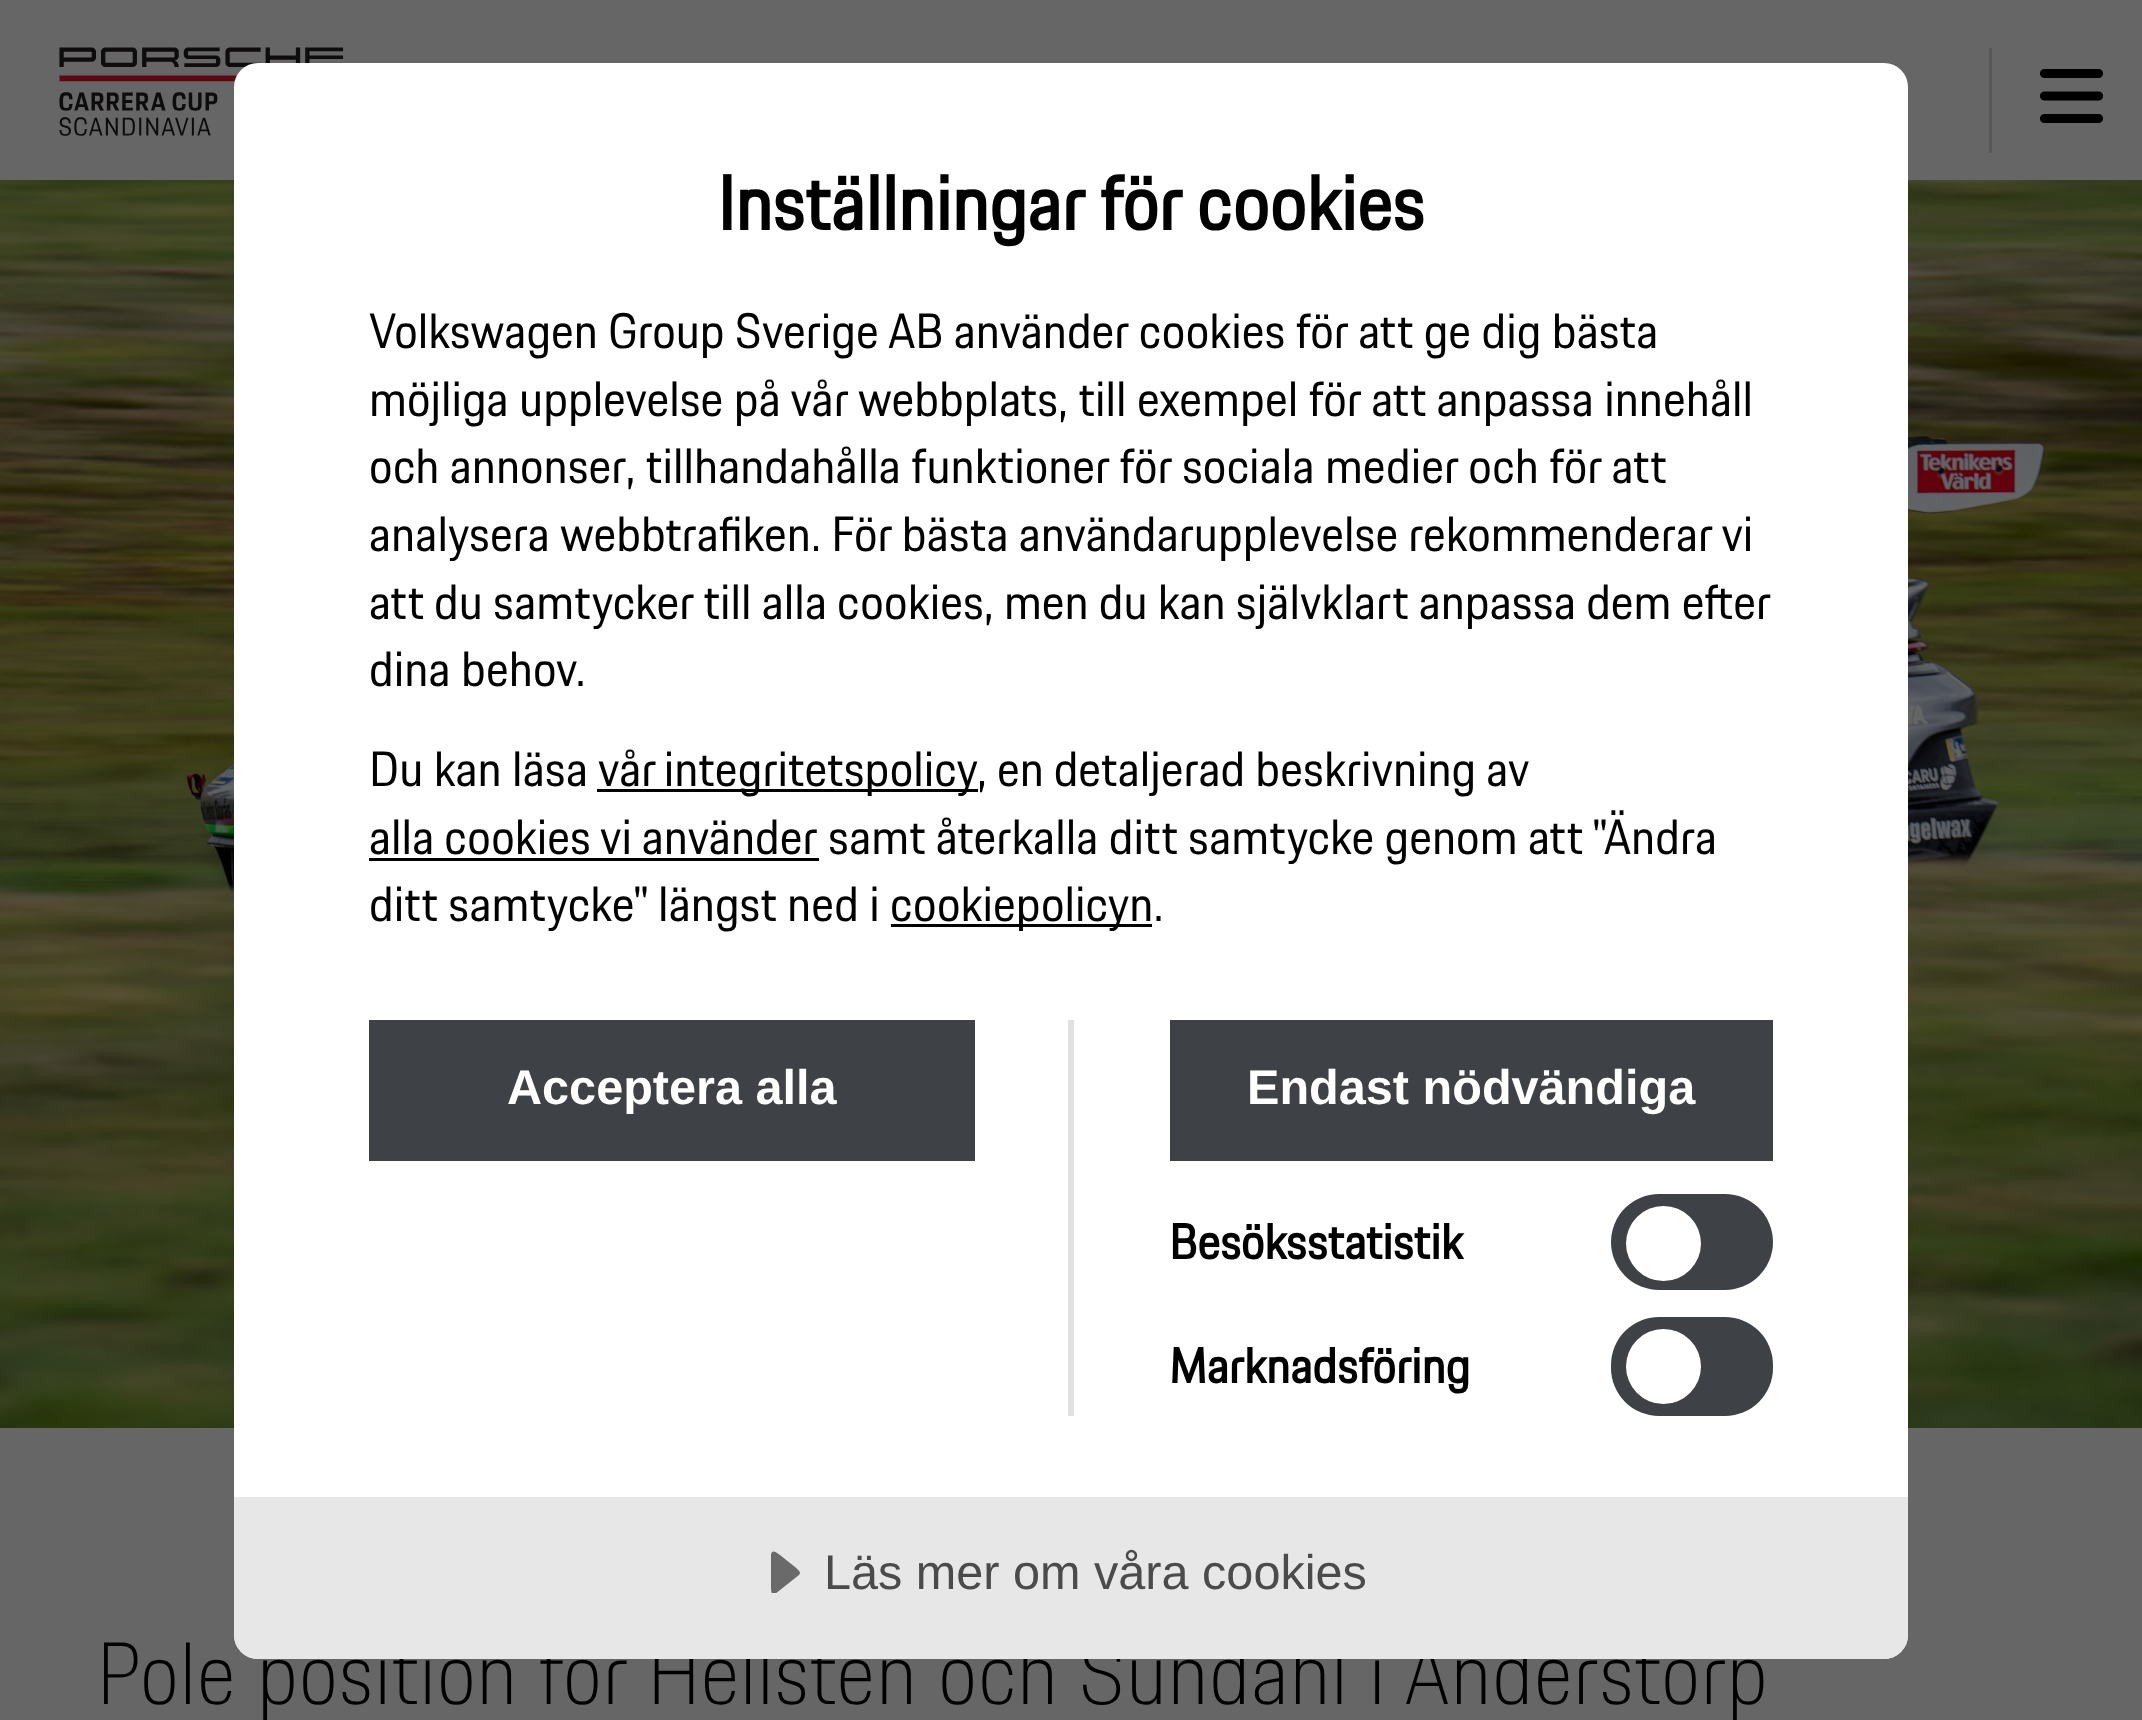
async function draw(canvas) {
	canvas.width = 2142;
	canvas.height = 1720;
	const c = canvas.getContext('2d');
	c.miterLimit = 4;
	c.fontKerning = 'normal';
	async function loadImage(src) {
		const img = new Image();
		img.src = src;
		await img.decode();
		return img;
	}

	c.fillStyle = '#666';
	c.fillRect(0, 0, 2142, 1720);
	c.drawImage(await loadImage('img1.png'), 59, 47, 285, 89);
	c.fillStyle = '#575759';
	c.fillRect(1989, 48, 3, 105);
	c.drawImage(await loadImage('img2.png'), 2040, 69, 63, 54);
	c.drawImage(await loadImage('img3.png'), 0, 180, 2142, 1248);
	c.font = '200 86.4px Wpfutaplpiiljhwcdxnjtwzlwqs';
	c.fillStyle = '#000';
	c.fillText('Pole position för Hellsten och Sundahl i Anderstorp', 96, 1704);
	c.fillStyle = '#fff';
	c.beginPath();
	c.roundRect(234, 63, 1674, 1596, 24);
	c.fill();
	c.font = 'bold 75.5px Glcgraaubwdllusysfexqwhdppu';
	c.fillStyle = '#000';
	c.fillText('Inställningar för cookies', 717, 230);
	c.font = '48.6px Glcgraaubwdllusysfexqwhdppu';
	for (const [text, x, y] of [
		['Volkswagen Group Sverige AB använder cookies för att ge dig bästa', 369, 348],
		['möjliga upplevelse på vår webbplats, till exempel för att anpassa innehåll', 369, 416],
		['och annonser, tillhandahålla funktioner för sociala medier och för att', 369, 483],
	]) {
		c.fillText(text, x, y);
	}
	c.wordSpacing = '-0.25px';
	c.fillText('analysera webbtrafiken. För bästa användarupplevelse rekommenderar vi', 369, 551);
	c.fillText('att du samtycker till alla cookies, men du kan självklart anpassa dem efter', 369, 619);
	c.wordSpacing = '0px';
	c.fillText('dina behov.', 369, 686);
	c.fillText('Du kan läsa', 369, 786);
	c.fillRect(597, 789, 381, 3);
	c.wordSpacing = '-2px';
	c.fillText('vår integritetspolicy', 598, 786);
	c.wordSpacing = '-0.5px';
	c.fillText(', en detaljerad beskrivning av', 977, 786);
	c.fillText('alla cookies vi använder', 369, 854);
	c.fillRect(369, 858, 450, 3);
	c.wordSpacing = '0px';
	c.fillText('samt återkalla ditt samtycke genom att "Ändra', 828, 854);
	c.fillText('ditt samtycke" längst ned i', 369, 921);
	c.fillRect(891, 924, 261, 3);
	c.fillText('cookiepolicyn.', 890, 921);
	c.fillStyle = '#e0e0e0';
	c.fillRect(1068, 1020, 6, 396);
	c.fillStyle = '#3e4146';
	c.fillRect(369, 1020, 606, 141);
	c.font = 'bold 48.6px Liberation Sans';
	c.fillStyle = '#fff';
	c.fillText('Acceptera alla', 507, 1104);
	c.fillStyle = '#3e4146';
	c.fillRect(1170, 1020, 603, 141);
	c.fillStyle = '#fff';
	c.fillText('Endast nödvändiga', 1247, 1104);
	c.font = 'bold 48.6px Glcgraaubwdllusysfexqwhdppu';
	c.fillStyle = '#000';
	c.fillText('Besöksstatistik', 1169, 1259);
	c.fillStyle = '#3e4146';
	c.beginPath();
	c.roundRect(1611, 1194, 162, 96, 48);
	c.fill();
	c.fillStyle = '#fff';
	c.beginPath();
	c.arc(1663.5, 1243.5, 37.5, 0, 2 * Math.PI);
	c.fill();
	c.fillStyle = '#000';
	c.fillText('Marknadsföring', 1169, 1383);
	c.fillStyle = '#3e4146';
	c.beginPath();
	c.roundRect(1611, 1317, 162, 99, 48);
	c.fill();
	c.fillStyle = '#fff';
	c.beginPath();
	c.arc(1663.5, 1366.5, 37.5, 0, 2 * Math.PI);
	c.fill();
	c.fillStyle = '#e7e7e7';
	c.beginPath();
	c.roundRect(234, 1497, 1674, 162, [0, 0, 24, 24]);
	c.fill();
	c.save();
	c.beginPath();
	c.rect(771, 1551, 30, 42);
	c.clip();
	c.fillStyle = '#6a6a6a';
	c.beginPath();
	c.moveTo(799, 1575);
	c.lineTo(775, 1594);
	c.bezierCurveTo(770, 1597, 771, 1586, 771, 1579);
	c.lineTo(771, 1554);
	c.lineTo(772, 1552);
	c.bezierCurveTo(775, 1550, 778, 1554, 780, 1555);
	c.lineTo(795, 1567);
	c.bezierCurveTo(797, 1569, 802, 1572, 799, 1575);
	c.closePath();
	c.fill();
	c.restore();
	c.font = '48.6px Liberation Sans';
	c.fillStyle = '#4b4b4b';
	c.fillText('Läs mer om våra cookies', 824, 1589);
}

draw(document.querySelector('canvas'));
